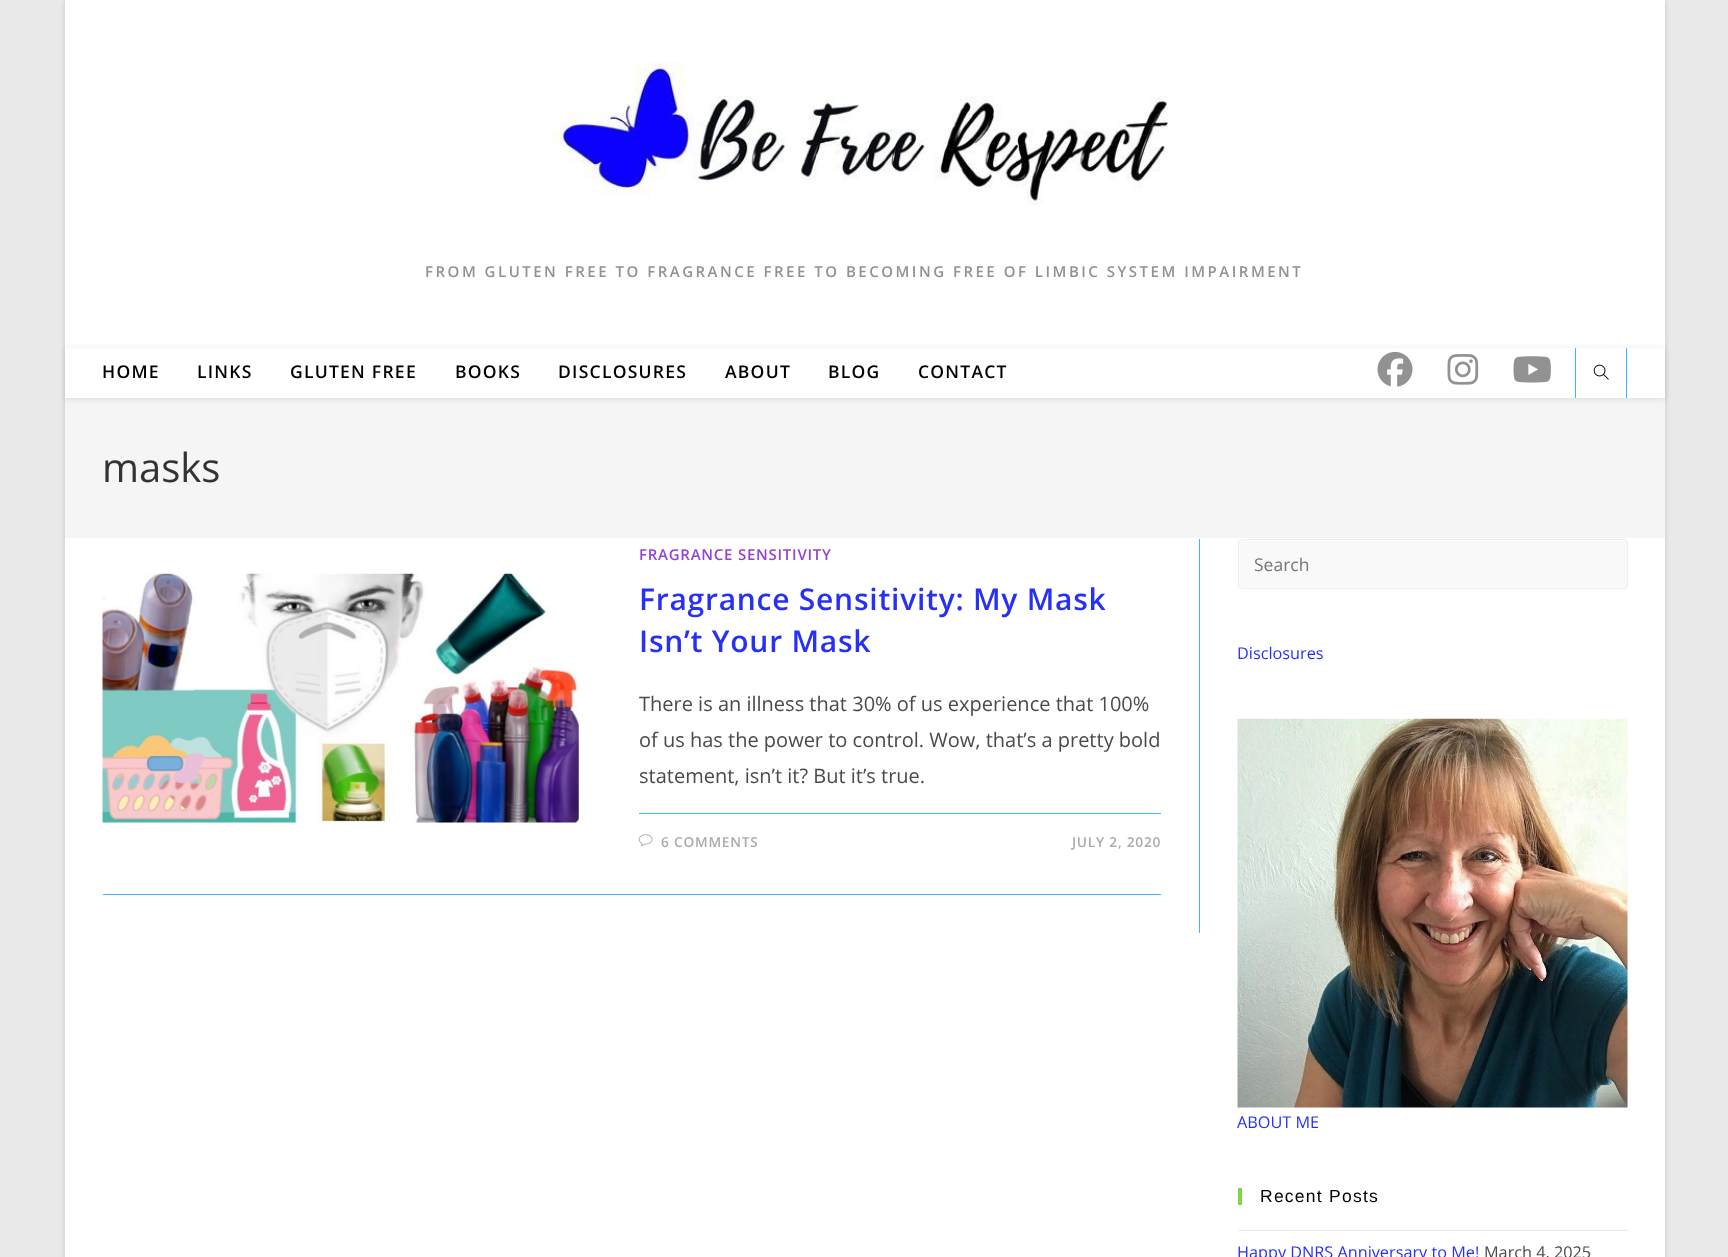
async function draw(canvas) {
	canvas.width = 1728;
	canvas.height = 1257;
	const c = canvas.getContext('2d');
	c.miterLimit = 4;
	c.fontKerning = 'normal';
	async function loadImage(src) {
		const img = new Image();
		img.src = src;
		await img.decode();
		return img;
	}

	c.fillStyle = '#e9e9e9';
	c.fillRect(0, 0, 1728, 1257);
	c.fillStyle = '#00000026';
	c.filter = 'blur(2.5px)';
	c.beginPath();
	c.rect(65, 1, 1600, 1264);
	c.fill();
	c.filter = 'none';
	c.fillStyle = '#fff';
	c.fillRect(65, 0, 1600, 1257);
	c.drawImage(await loadImage('img1.png'), 551, 62, 617, 143);
	c.letterSpacing = '2.5px';
	c.font = '600 15px Open Sans';
	c.fillStyle = '#929292';
	c.fillText('FROM GLUTEN FREE TO FRAGRANCE FREE TO BECOMING FREE OF LIMBIC SYSTEM IMPAIRMENT', 425, 277);
	c.fillStyle = '#f5f5f5';
	c.fillRect(65, 398, 1600, 140);
	c.fillStyle = '#0000001a';
	c.filter = 'blur(3px)';
	c.beginPath();
	c.rect(65, 349, 1600, 50);
	c.fill();
	c.filter = 'none';
	c.fillStyle = '#fff';
	c.fillRect(65, 348, 1600, 50);
	c.letterSpacing = '1.25px';
	c.font = '600 17.5px Open Sans';
	c.fillStyle = '#000';
	for (const [text, x, y] of [
		['HOME', 102, 378],
		['LINKS', 197, 378],
		['GLUTEN FREE', 290, 378],
		['BOOKS', 455, 378],
		['DISCLOSURES', 558, 378],
		['ABOUT', 725, 378],
		['BLOG', 828, 378],
		['CONTACT', 918, 378],
	]) {
		c.fillText(text, x, y);
	}
	c.drawImage(await loadImage('img2.png'), 1377, 351, 36, 36);
	c.drawImage(await loadImage('img3.png'), 1447, 354, 32, 31);
	c.drawImage(await loadImage('img4.png'), 1513, 356, 38, 27);
	c.fillStyle = '#38b6ff';
	c.fillRect(1626, 348, 1, 50);
	c.fillRect(1575, 348, 1, 50);
	c.drawImage(await loadImage('img5.png'), 1593, 364, 16, 16);
	c.letterSpacing = '0px';
	c.font = '40px Open Sans';
	c.fillStyle = '#333';
	c.fillText('masks', 102, 482);
	c.fillStyle = '#3db8ff';
	c.fillRect(1199, 539, 1, 394);
	c.fillRect(103, 894, 1058, 1);
	c.drawImage(await loadImage('img6.png'), 102, 573, 477, 250);
	c.letterSpacing = '0.75px';
	c.font = '600 15px Open Sans';
	c.fillStyle = '#9543d5';
	c.fillText('FRAGRANCE SENSITIVITY', 639, 560);
	c.font = '600 30px Open Sans';
	c.fillStyle = '#2731f4';
	c.fillText('Fragrance Sensitivity: My Mask', 639, 610);
	c.fillText('Isn’t Your Mask', 639, 652);
	c.letterSpacing = '0px';
	c.font = '20px Open Sans';
	c.fillStyle = '#4a4a4a';
	for (const [text, x, y] of [
		['There is an illness that 30% of us experience that 100%', 639, 711],
		['of us has the power to control. Wow, that’s a pretty bold', 639, 747],
		['statement, isn’t it? But it’s true.', 639, 783],
	]) {
		c.fillText(text, x, y);
	}
	c.fillStyle = '#3db8ff';
	c.fillRect(639, 813, 522, 1);
	c.drawImage(await loadImage('img7.png'), 638, 834, 15, 13);
	c.letterSpacing = '0.75px';
	c.font = '600 13.75px Open Sans';
	c.fillStyle = '#ababab';
	c.fillText('6 COMMENTS', 661, 847);
	c.fillText('JULY 2, 2020', 1072, 847);
	c.fillStyle = '#f9f9f9';
	c.beginPath();
	c.roundRect(1238.5, 539.5, 389, 49, 3.5);
	c.fill();
	c.strokeStyle = '#eee';
	c.stroke();
	c.letterSpacing = '0px';
	c.font = '17.5px Open Sans';
	c.fillStyle = '#757575';
	c.fillText('Search', 1254, 571);
	c.font = '16.25px Open Sans';
	c.fillStyle = '#2731f4';
	c.fillText('Disclosures', 1237, 659);
	c.drawImage(await loadImage('img8.png'), 1237, 718, 391, 390);
	c.fillText('ABOUT ME', 1237, 1128);
	c.fillStyle = '#81d742';
	c.fillRect(1238, 1188, 4, 17);
	c.letterSpacing = '1.25px';
	c.font = '17.5px Liberation Sans';
	c.fillStyle = '#000';
	c.fillText('Recent Posts', 1260, 1202);
	c.fillStyle = '#e9e9e9';
	c.fillRect(1238, 1230, 390, 1);
	c.letterSpacing = '0px';
	c.font = '16.25px Open Sans';
	c.fillStyle = '#2731f4';
	c.fillText('Happy DNRS Anniversary to Me!', 1237, 1258);
	c.fillStyle = '#4a4a4a';
	c.fillText('March 4, 2025', 1484, 1258);
}

draw(document.querySelector('canvas'));
